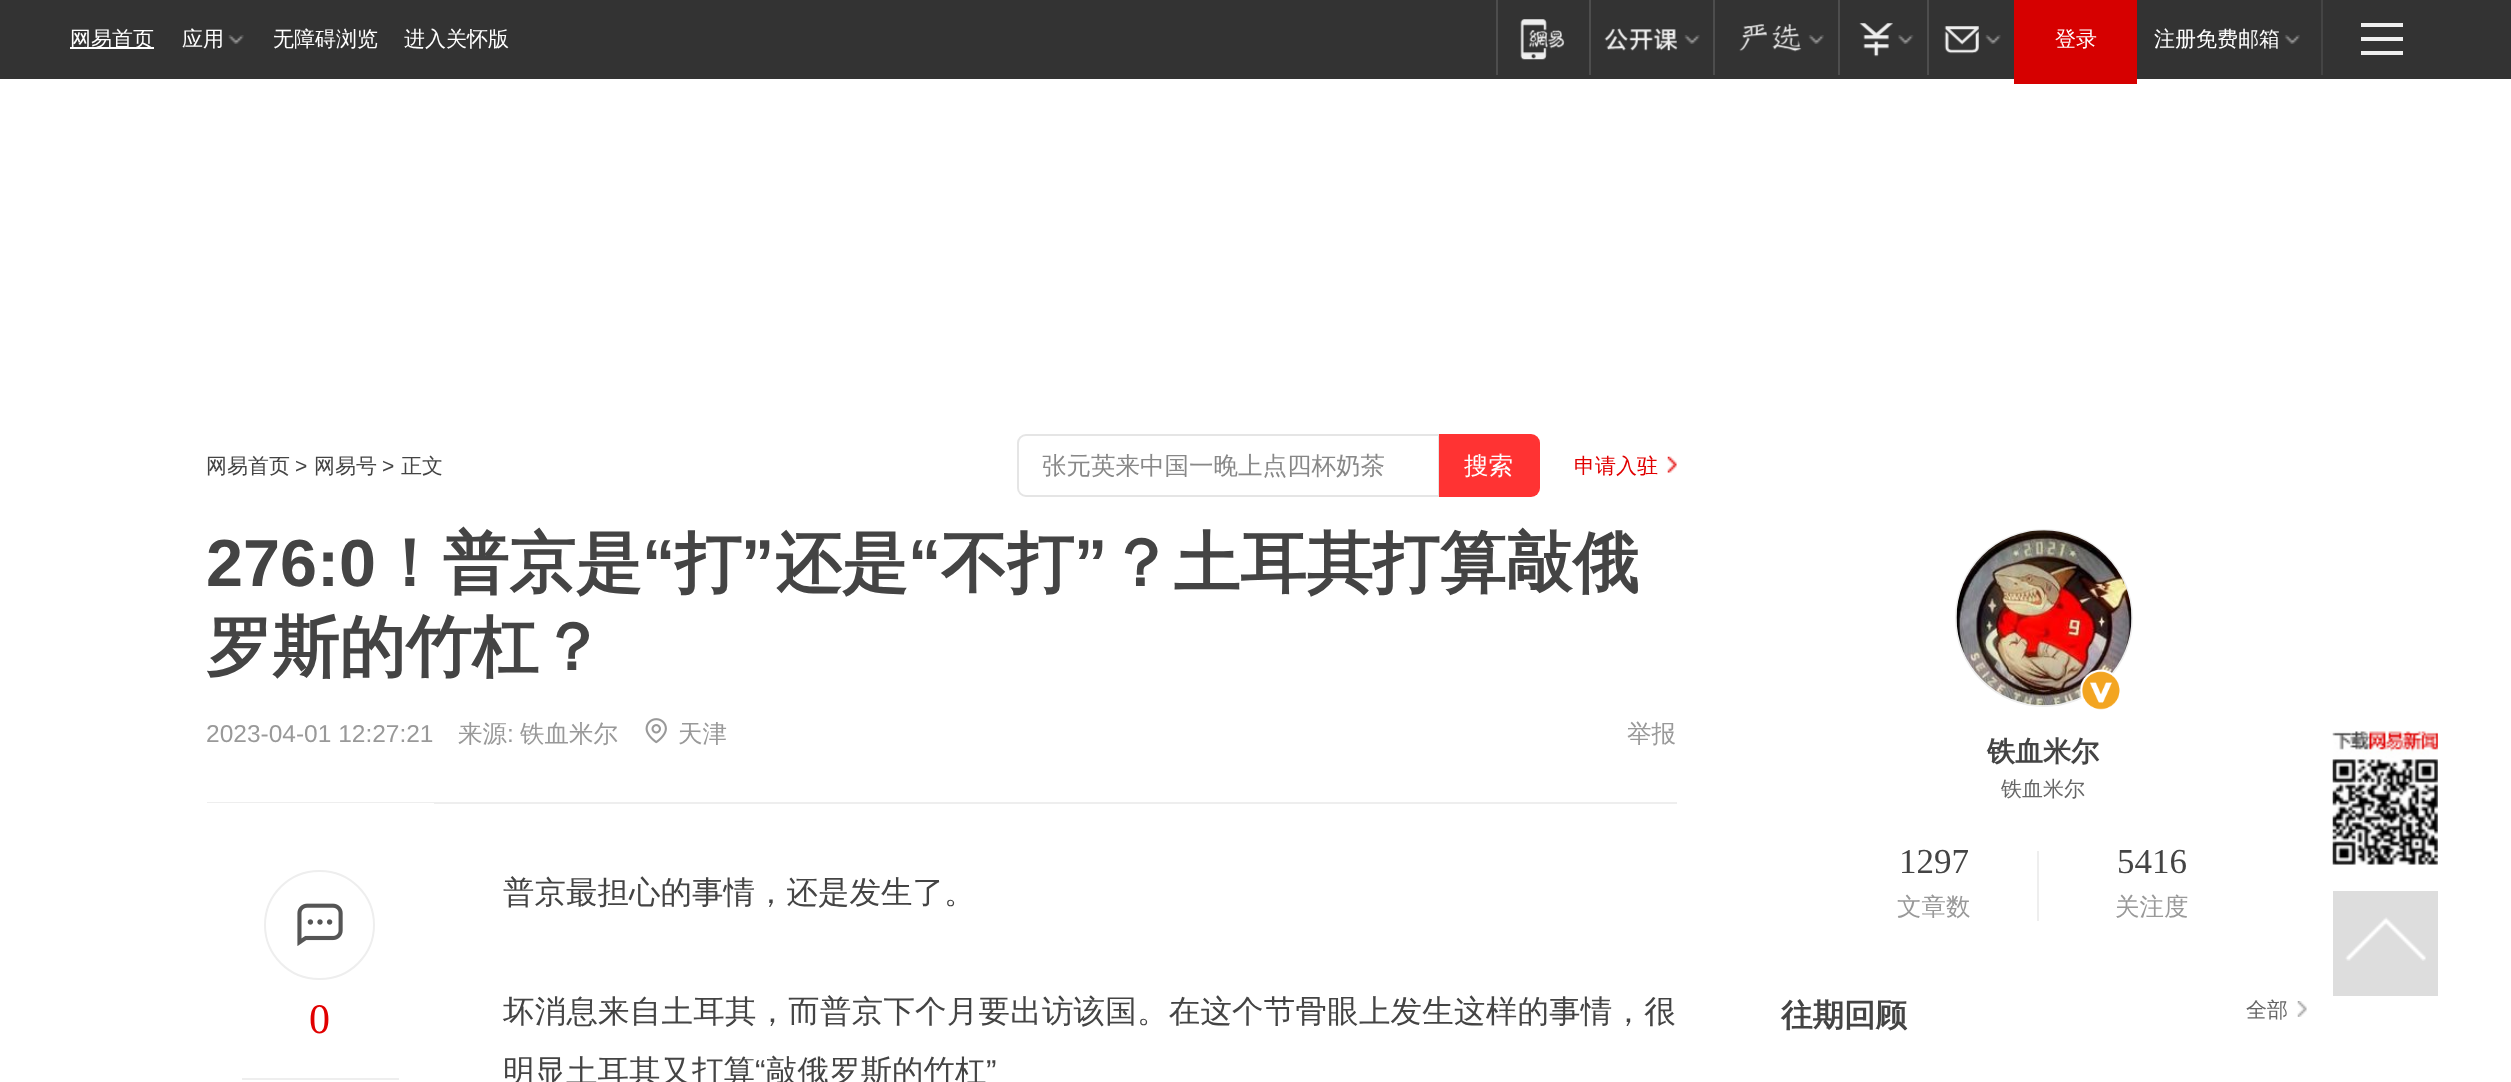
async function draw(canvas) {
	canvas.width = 2511;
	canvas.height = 1082;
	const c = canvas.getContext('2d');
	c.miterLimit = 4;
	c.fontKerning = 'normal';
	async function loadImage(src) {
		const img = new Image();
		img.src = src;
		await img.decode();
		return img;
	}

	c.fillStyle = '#fff';
	c.fillRect(0, 0, 2511, 1082);
	c.fillStyle = '#333';
	c.fillRect(0, 0, 2511, 79);
	c.fillStyle = '#fff';
	c.fillRect(70, 47, 84, 2);
	c.font = '500 21px WenQuanYi Zen Hei';
	c.fillText('网易首页', 70, 46);
	c.fillText('应用', 182, 46);
	c.drawImage(await loadImage('img1.png'), 228, 35, 16, 9);
	c.fillText('无障碍浏览', 273, 46);
	c.fillText('进入关怀版', 404, 46);
	c.fillStyle = '#4d4d4d';
	c.fillRect(1496, 0, 2, 75);
	c.drawImage(await loadImage('img2.png'), 1520, 19, 45, 41);
	c.fillRect(1589, 0, 2, 75);
	c.drawImage(await loadImage('img3.png'), 1604, 28, 74, 23);
	c.drawImage(await loadImage('img1.png'), 1684, 35, 16, 9);
	c.fillRect(1713, 0, 2, 75);
	c.drawImage(await loadImage('img4.png'), 1739, 23, 63, 29);
	c.drawImage(await loadImage('img5.png'), 1808, 35, 16, 9);
	c.fillRect(1838, 0, 2, 75);
	c.drawImage(await loadImage('img6.png'), 1859, 23, 34, 34);
	c.drawImage(await loadImage('img7.png'), 1898, 35, 16, 9);
	c.fillRect(1927, 0, 2, 75);
	c.drawImage(await loadImage('img8.png'), 1944, 26, 35, 28);
	c.drawImage(await loadImage('img9.png'), 1985, 35, 16, 9);
	c.fillStyle = '#d60000';
	c.fillRect(2014, 0, 123, 84);
	c.fillStyle = '#fff';
	c.fillText('登录', 2055, 46);
	c.fillText('注册免费邮箱', 2154, 46);
	c.drawImage(await loadImage('img10.png'), 2284, 35, 16, 9);
	for (const [x, y, w, h, color] of [
		[2321, 0, 2, 75, '#444'],
		[2361, 23, 42, 4, '#efefef'],
		[2361, 37, 42, 4, '#efefef'],
		[2361, 51, 42, 4, '#efefef'],
	]) {
		c.fillStyle = color;
		c.fillRect(x, y, w, h);
	}
	c.fillStyle = '#444';
	c.fillText('网易首页', 206, 473);
	c.font = '21px Liberation Sans';
	c.fillText('>', 295, 473);
	c.font = '500 21px WenQuanYi Zen Hei';
	c.fillText('网易号', 314, 473);
	c.font = '21px Liberation Sans';
	c.fillText('>', 382, 473);
	c.font = '500 21px WenQuanYi Zen Hei';
	c.fillText('正文', 401, 473);
	c.beginPath();
	c.roundRect(1018, 435, 421, 61, [8, 0, 0, 8]);
	c.strokeStyle = '#e5e5e5';
	c.lineWidth = 2;
	c.stroke();
	c.font = '500 24.5px WenQuanYi Zen Hei';
	c.fillStyle = '#888';
	c.fillText('张元英来中国一晚上点四杯奶茶', 1042, 474);
	c.fillStyle = '#f33';
	c.beginPath();
	c.roundRect(1439, 434, 101, 63, [0, 9, 9, 0]);
	c.fill();
	c.fillStyle = '#fff';
	c.fillText('搜索', 1464, 474);
	c.drawImage(await loadImage('img11.png'), 1667, 456, 10, 17);
	c.font = '500 21px WenQuanYi Zen Hei';
	c.fillStyle = '#e10000';
	c.fillText('申请入驻', 1574, 473);
	c.font = 'bold 66.5px Liberation Sans';
	c.fillStyle = '#444';
	c.fillText('276:0', 206, 586);
	c.font = 'bold 66.5px WenQuanYi Zen Hei';
	c.fillText('！普京是', 376, 586);
	c.font = 'bold 66.5px Liberation Sans';
	c.fillText('“', 642, 586);
	c.font = 'bold 66.5px WenQuanYi Zen Hei';
	c.fillText('打', 675, 586);
	c.font = 'bold 66.5px Liberation Sans';
	c.fillText('”', 741, 586);
	c.font = 'bold 66.5px WenQuanYi Zen Hei';
	c.fillText('还是', 775, 586);
	c.font = 'bold 66.5px Liberation Sans';
	c.fillText('“', 908, 586);
	c.font = 'bold 66.5px WenQuanYi Zen Hei';
	c.fillText('不打', 941, 586);
	c.font = 'bold 66.5px Liberation Sans';
	c.fillText('”', 1074, 586);
	c.font = 'bold 66.5px WenQuanYi Zen Hei';
	c.fillText('？土耳其打算敲俄', 1107, 586);
	c.fillText('罗斯的竹杠？', 206, 670);
	c.font = '24.5px Liberation Sans';
	c.fillStyle = '#999';
	c.fillText('2023-04-01 12:27:21', 206, 742);
	c.font = '500 24.5px WenQuanYi Zen Hei';
	c.fillText('来源', 458, 742);
	c.font = '24.5px Liberation Sans';
	c.fillText(':', 507, 742);
	c.font = '500 24.5px WenQuanYi Zen Hei';
	c.fillText('铁血米尔', 520, 742);
	c.drawImage(await loadImage('img12.png'), 645, 718, 22, 26);
	c.fillText('天津', 678, 742);
	c.fillText('举报', 1627, 742);
	for (const [x, y, w, h, color] of [
		[207, 802, 1470, 2, '#eee'],
		[207, 803, 227, 1, '#fff'],
		[242, 1078, 157, 2, '#eee'],
	]) {
		c.fillStyle = color;
		c.fillRect(x, y, w, h);
	}
	c.beginPath();
	c.roundRect(265, 871, 109, 108, 54);
	c.strokeStyle = '#eee';
	c.stroke();
	c.drawImage(await loadImage('img13.png'), 297, 903, 46, 43);
	c.font = '42px Liberation Serif';
	c.fillStyle = '#e10000';
	c.fillText('0', 309, 1033);
	c.font = '500 31.5px WenQuanYi Zen Hei';
	c.fillStyle = '#444';
	c.fillText('普京最担心的事情，还是发生了。', 503, 903);
	c.letterSpacing = '0.2px';
	c.fillText('坏消息来自土耳其，而普京下个月要出访该国。在这个节骨眼上发生这样的事情，很', 503, 1022);
	c.letterSpacing = '0px';
	c.fillText('明显土耳其又打算', 503, 1082);
	c.font = '31.5px Liberation Sans';
	c.fillText('“', 755, 1082);
	c.font = '500 31.5px WenQuanYi Zen Hei';
	c.fillText('敲俄罗斯的竹杠', 766, 1082);
	c.font = '31.5px Liberation Sans';
	c.fillText('”', 986, 1082);
	c.beginPath();
	c.arc(2044, 618, 88, 0, 2 * Math.PI);
	c.stroke();
	c.drawImage(await loadImage('img14.png'), 1956, 530, 176, 176);
	c.drawImage(await loadImage('img15.png'), 2079, 669, 41, 41);
	c.font = 'bold 28px WenQuanYi Zen Hei';
	c.fillText('铁血米尔', 1987, 761);
	c.font = '500 21px WenQuanYi Zen Hei';
	c.fillStyle = '#666';
	c.fillText('铁血米尔', 2001, 796);
	c.font = '35px Liberation Serif';
	c.fillStyle = '#444';
	c.fillText('1297', 1899, 873);
	c.fillStyle = '#eee';
	c.fillRect(2037, 851, 2, 70);
	c.font = '500 24.5px WenQuanYi Zen Hei';
	c.fillStyle = '#999';
	c.fillText('文章数', 1897, 915);
	c.font = '35px Liberation Serif';
	c.fillStyle = '#444';
	c.fillText('5416', 2117, 873);
	c.font = '500 24.5px WenQuanYi Zen Hei';
	c.fillStyle = '#999';
	c.fillText('关注度', 2115, 915);
	c.font = 'bold 31.5px WenQuanYi Zen Hei';
	c.fillStyle = '#444';
	c.fillText('往期回顾', 1781, 1026);
	c.drawImage(await loadImage('img16.png'), 2297, 1001, 10, 16);
	c.font = '500 21px WenQuanYi Zen Hei';
	c.fillStyle = '#666';
	c.fillText('全部', 2246, 1017);
	c.drawImage(await loadImage('img17.png'), 2332, 730, 106, 135);
	c.fillStyle = '#ddd';
	c.fillRect(2333, 891, 105, 105);
	c.drawImage(await loadImage('img18.png'), 2345, 917, 81, 44);
}

draw(document.querySelector('canvas'));
